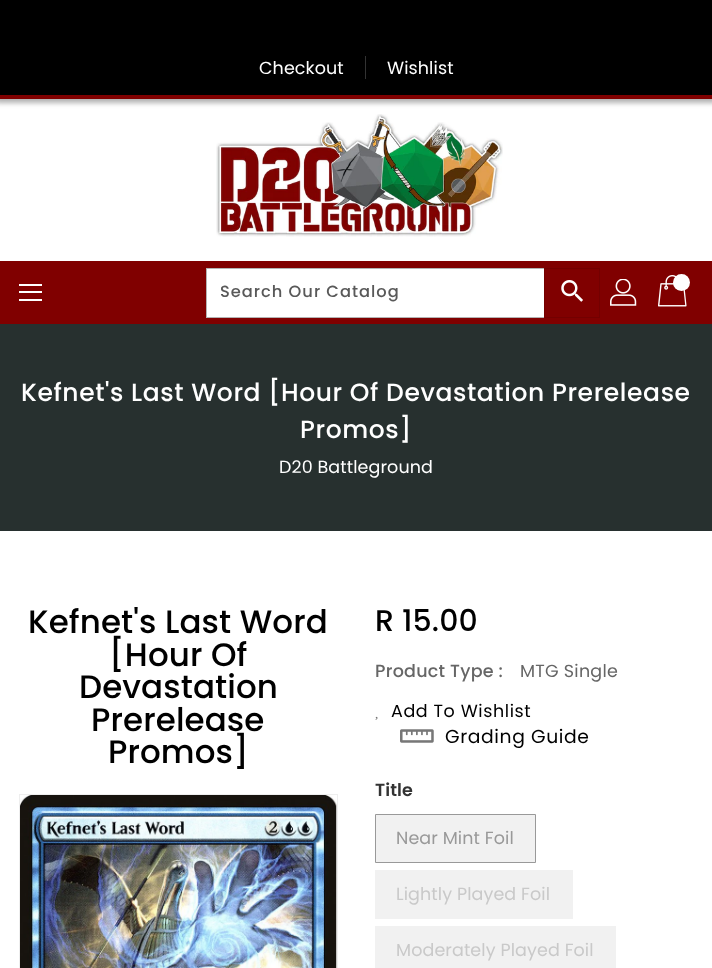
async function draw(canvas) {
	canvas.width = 712;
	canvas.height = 968;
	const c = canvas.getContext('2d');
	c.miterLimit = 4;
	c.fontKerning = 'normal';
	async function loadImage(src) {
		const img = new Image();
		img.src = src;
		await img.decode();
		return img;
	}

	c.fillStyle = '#fff';
	c.fillRect(0, 0, 712, 968);
	c.fillStyle = '#0000004d';
	c.filter = 'blur(2.5px)';
	c.beginPath();
	c.rect(-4, -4, 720, 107);
	c.fill();
	c.filter = 'none';
	c.fillStyle = '#000';
	c.fillRect(0, 0, 712, 95);
	c.fillStyle = '#800000';
	c.fillRect(0, 95, 712, 4);
	c.letterSpacing = '0.1px';
	c.font = '17.5px Poppins';
	c.fillStyle = '#fff';
	c.fillText('Checkout', 259, 74);
	c.fillStyle = '#333';
	c.fillRect(365, 56, 1, 23);
	c.fillStyle = '#fff';
	c.fillText('Wishlist', 387, 74);
	c.drawImage(await loadImage('img1.png'), 216, 114, 287, 123);
	for (const [x, y, w, h, color] of [
		[0, 261, 712, 63, '#800000'],
		[19, 284, 23, 2, '#fff'],
		[19, 291, 23, 2, '#fff'],
		[19, 299, 23, 2, '#fff'],
		[207, 269, 337, 48, '#fff'],
	]) {
		c.fillStyle = color;
		c.fillRect(x, y, w, h);
	}
	c.strokeStyle = '#b3b3b3';
	c.strokeRect(206.5, 268.5, 393, 49);
	c.letterSpacing = '1px';
	c.font = '500 16.25px Poppins';
	c.fillStyle = '#595959';
	c.fillText('Search Our Catalog', 220, 297);
	c.strokeStyle = '#730000';
	c.strokeRect(544.5, 268.5, 55, 49);
	c.drawImage(await loadImage('img2.png'), 561, 280, 22, 22);
	c.drawImage(await loadImage('img3.png'), 610, 279, 27, 27);
	c.drawImage(await loadImage('img4.png'), 658, 275, 29, 32);
	c.fillStyle = '#fff';
	c.beginPath();
	c.arc(681.5, 282.5, 8.5, 0, 2 * Math.PI);
	c.fill();
	c.fillStyle = '#27302f';
	c.fillRect(0, 324, 712, 207);
	c.letterSpacing = '0.6px';
	c.font = '500 25px Poppins';
	c.fillStyle = '#fff';
	c.fillText('Kefnet\'s Last Word [Hour Of Devastation Prerelease', 21, 401);
	c.fillText('Promos]', 300, 438);
	c.letterSpacing = '0.1px';
	c.font = '17.5px Poppins';
	c.fillText('D20 Battleground', 279, 473);
	c.font = '500 32.5px Poppins';
	c.fillStyle = '#000';
	for (const [text, x, y] of [
		['Kefnet\'s Last Word', 28, 633],
		['[Hour Of', 109, 666],
		['Devastation', 79, 698],
		['Prerelease', 91, 731],
		['Promos]', 108, 763],
	]) {
		c.fillText(text, x, y);
	}
	c.strokeStyle = '#eee';
	c.strokeRect(19.5, 794.5, 318, 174);
	c.drawImage(await loadImage('img5.png'), 20, 795, 317, 173);
	c.font = '500 30px Poppins';
	c.fillText('R 15.00', 375, 631);
	c.letterSpacing = '0.25px';
	c.font = '500 17.5px Poppins';
	c.fillStyle = '#666';
	c.fillText('Product Type :', 375, 677);
	c.font = '17.5px Poppins';
	c.fillText('MTG Single', 520, 677);
	c.drawImage(await loadImage('img6.png'), 375, 716, 3, 4);
	c.letterSpacing = '0.6px';
	c.fillStyle = '#000';
	c.fillText('Add To Wishlist', 391, 717);
	c.drawImage(await loadImage('img7.png'), 400, 729, 34, 14);
	c.font = '18.75px Poppins';
	c.fillText('Grading Guide', 445, 743);
	c.letterSpacing = '0.1px';
	c.font = '600 17.5px Poppins';
	c.fillStyle = '#333';
	c.fillText('Title', 375, 796);
	c.fillStyle = '#f1f1f1';
	c.beginPath();
	c.rect(375.5, 814.5, 160, 48);
	c.fill();
	c.strokeStyle = '#999';
	c.stroke();
	c.font = '17.5px Poppins';
	c.fillStyle = '#999';
	c.fillText('Near Mint Foil', 396, 844);
	c.fillStyle = '#f1f1f1';
	c.fillRect(375, 870, 198, 49);
	c.fillStyle = '#c9c9c9';
	c.fillText('Lightly Played Foil', 396, 900);
	c.fillStyle = '#f1f1f1';
	c.fillRect(375, 926, 241, 42);
	c.fillStyle = '#c9c9c9';
	c.fillText('Moderately Played Foil', 396, 956);
}

draw(document.querySelector('canvas'));
